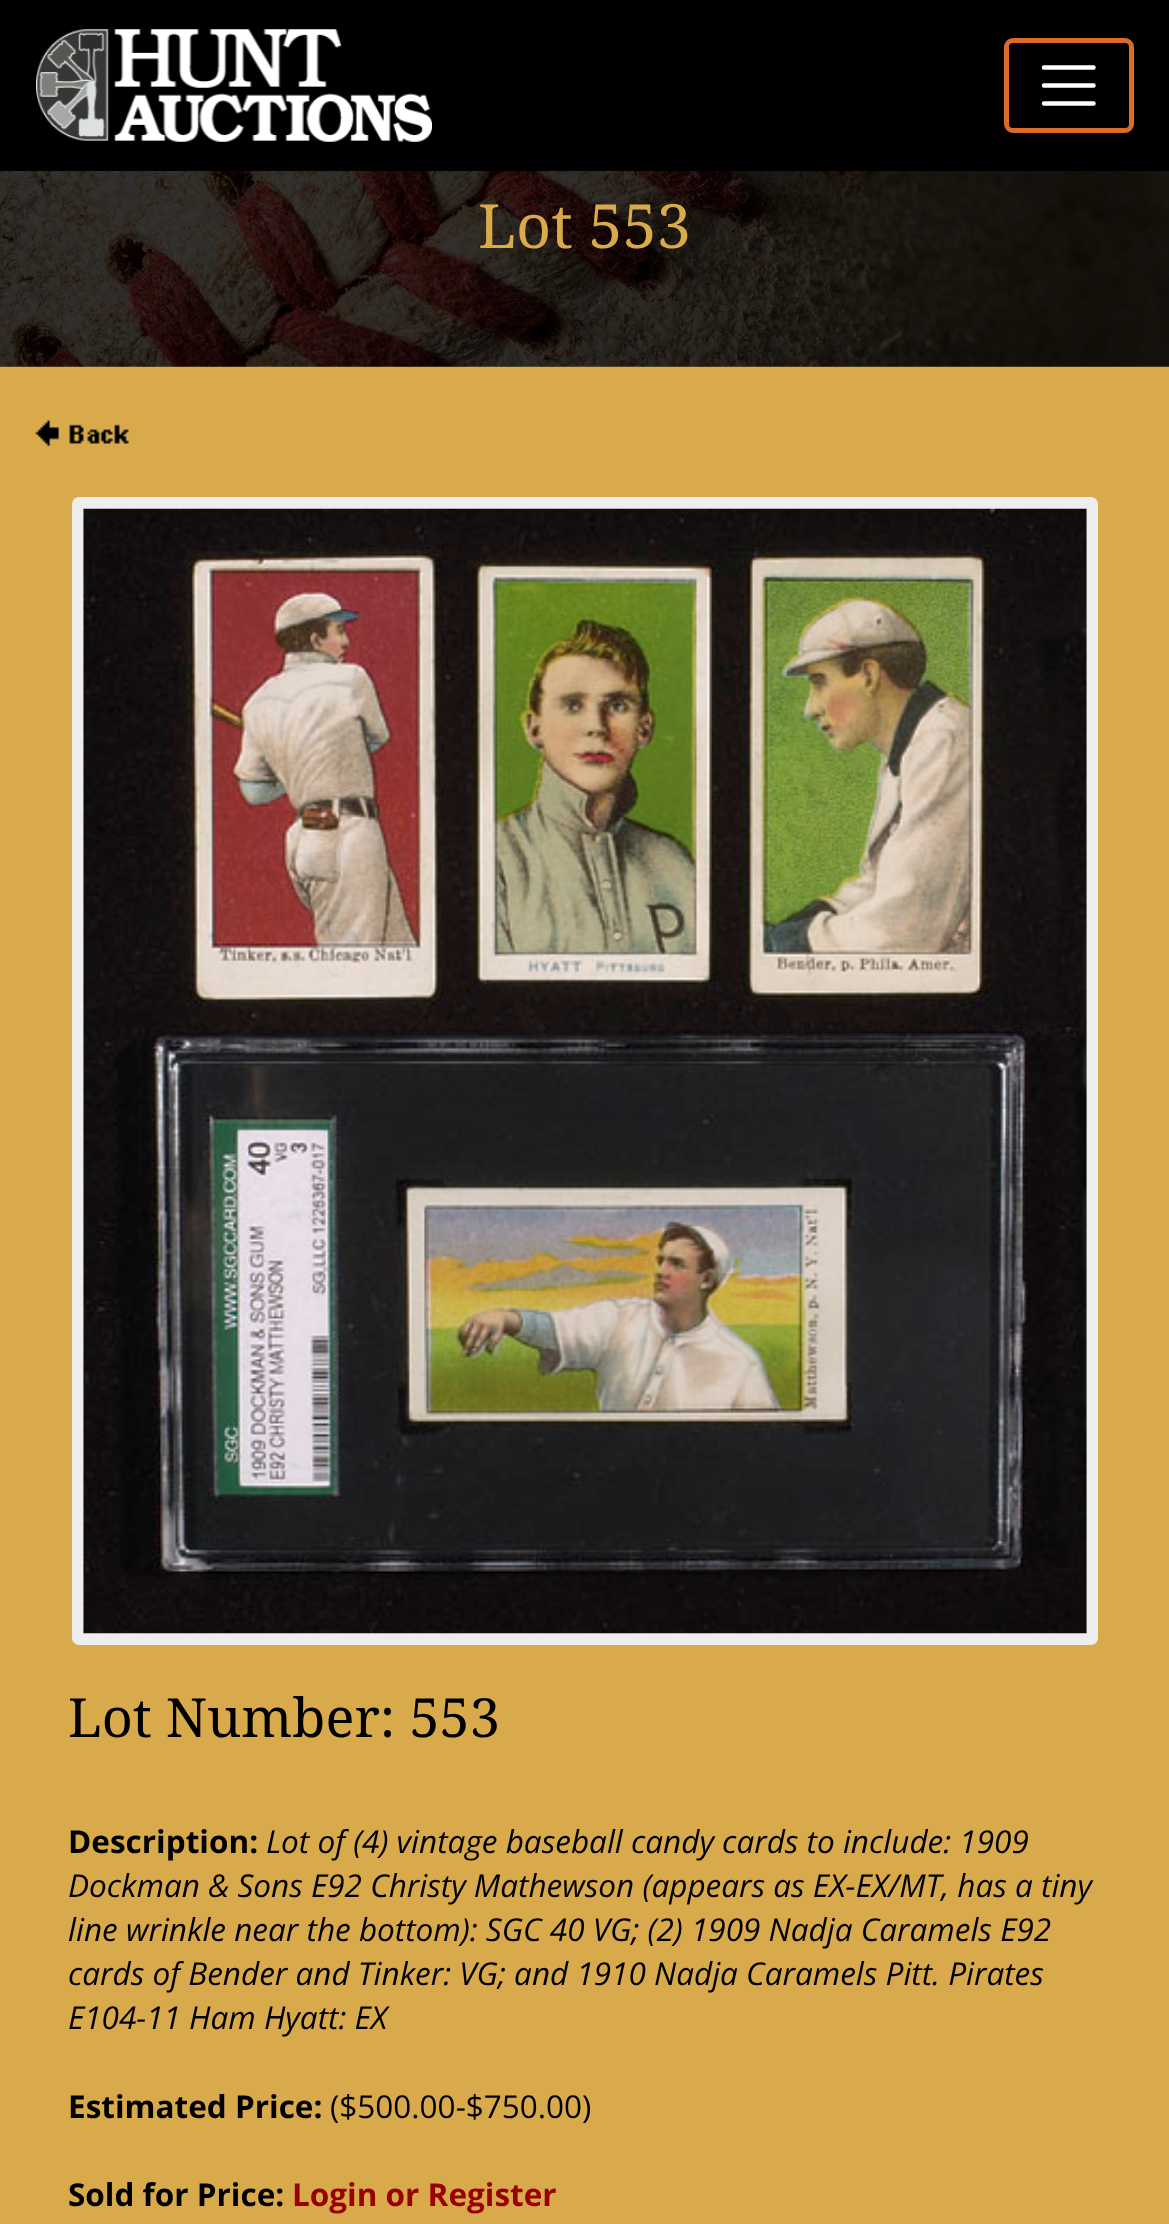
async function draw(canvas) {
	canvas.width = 1169;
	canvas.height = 2224;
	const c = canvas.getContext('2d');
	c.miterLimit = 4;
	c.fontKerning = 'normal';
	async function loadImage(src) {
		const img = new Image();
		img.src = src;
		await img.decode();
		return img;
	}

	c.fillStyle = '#d8aa4c';
	c.fillRect(0, 0, 1169, 2224);
	c.fillStyle = '#000';
	c.fillRect(0, 0, 1169, 171);
	c.drawImage(await loadImage('img1.png'), 36, 29, 396, 113);
	c.beginPath();
	c.roundRect(1006.5, 40.5, 125, 90, 6.5);
	c.strokeStyle = '#db6b28';
	c.lineWidth = 5;
	c.stroke();
	c.beginPath();
	c.moveTo(1044, 67.5);
	c.lineTo(1093.5, 67.5);
	c.moveTo(1044, 85.5);
	c.lineTo(1093.5, 85.5);
	c.moveTo(1044, 103.5);
	c.lineTo(1093.5, 103.5);
	c.strokeStyle = '#fff';
	c.lineWidth = 4.5;
	c.lineCap = 'round';
	c.stroke();
	c.drawImage(await loadImage('img2.png'), 0, 171, 1169, 196);
	c.font = '61px Droid Serif';
	c.fillStyle = '#d8aa4c';
	c.fillText('Lot 553', 478, 248);
	c.drawImage(await loadImage('img3.png'), 35, 420, 94, 27);
	c.fillStyle = '#eee';
	c.beginPath();
	c.roundRect(77.5, 502.5, 1015, 1137, 1.5);
	c.fill();
	c.strokeStyle = '#eee';
	c.lineWidth = 11;
	c.stroke();
	c.drawImage(await loadImage('img4.png'), 83, 508, 1004, 1126);
	c.font = '54px Droid Serif';
	c.fillStyle = '#000';
	c.fillText('Lot Number: 553', 68, 1737);
	c.font = 'bold 31.5px Open Sans';
	c.fillText('Description:', 68, 1853);
	c.font = 'italic 31.5px Open Sans';
	for (const [text, x, y] of [
		['Lot of (4) vintage baseball candy cards to include: 1909', 266, 1853],
		['Dockman & Sons E92 Christy Mathewson (appears as EX-EX/MT, has a tiny', 68, 1897],
		['line wrinkle near the bottom): SGC 40 VG; (2) 1909 Nadja Caramels E92', 68, 1941],
		['cards of Bender and Tinker: VG; and 1910 Nadja Caramels Pitt. Pirates', 68, 1985],
		['E104-11 Ham Hyatt: EX', 68, 2029],
	]) {
		c.fillText(text, x, y);
	}
	c.font = 'bold 31.5px Open Sans';
	c.fillText('Estimated Price:', 68, 2118);
	c.font = '31.5px Open Sans';
	c.fillText('($500.00-$750.00)', 330, 2118);
	c.font = 'bold 31.5px Open Sans';
	c.fillText('Sold for Price:', 68, 2206);
	c.fillStyle = '#900';
	c.fillText('Login or Register', 292, 2206);
}

draw(document.querySelector('canvas'));
